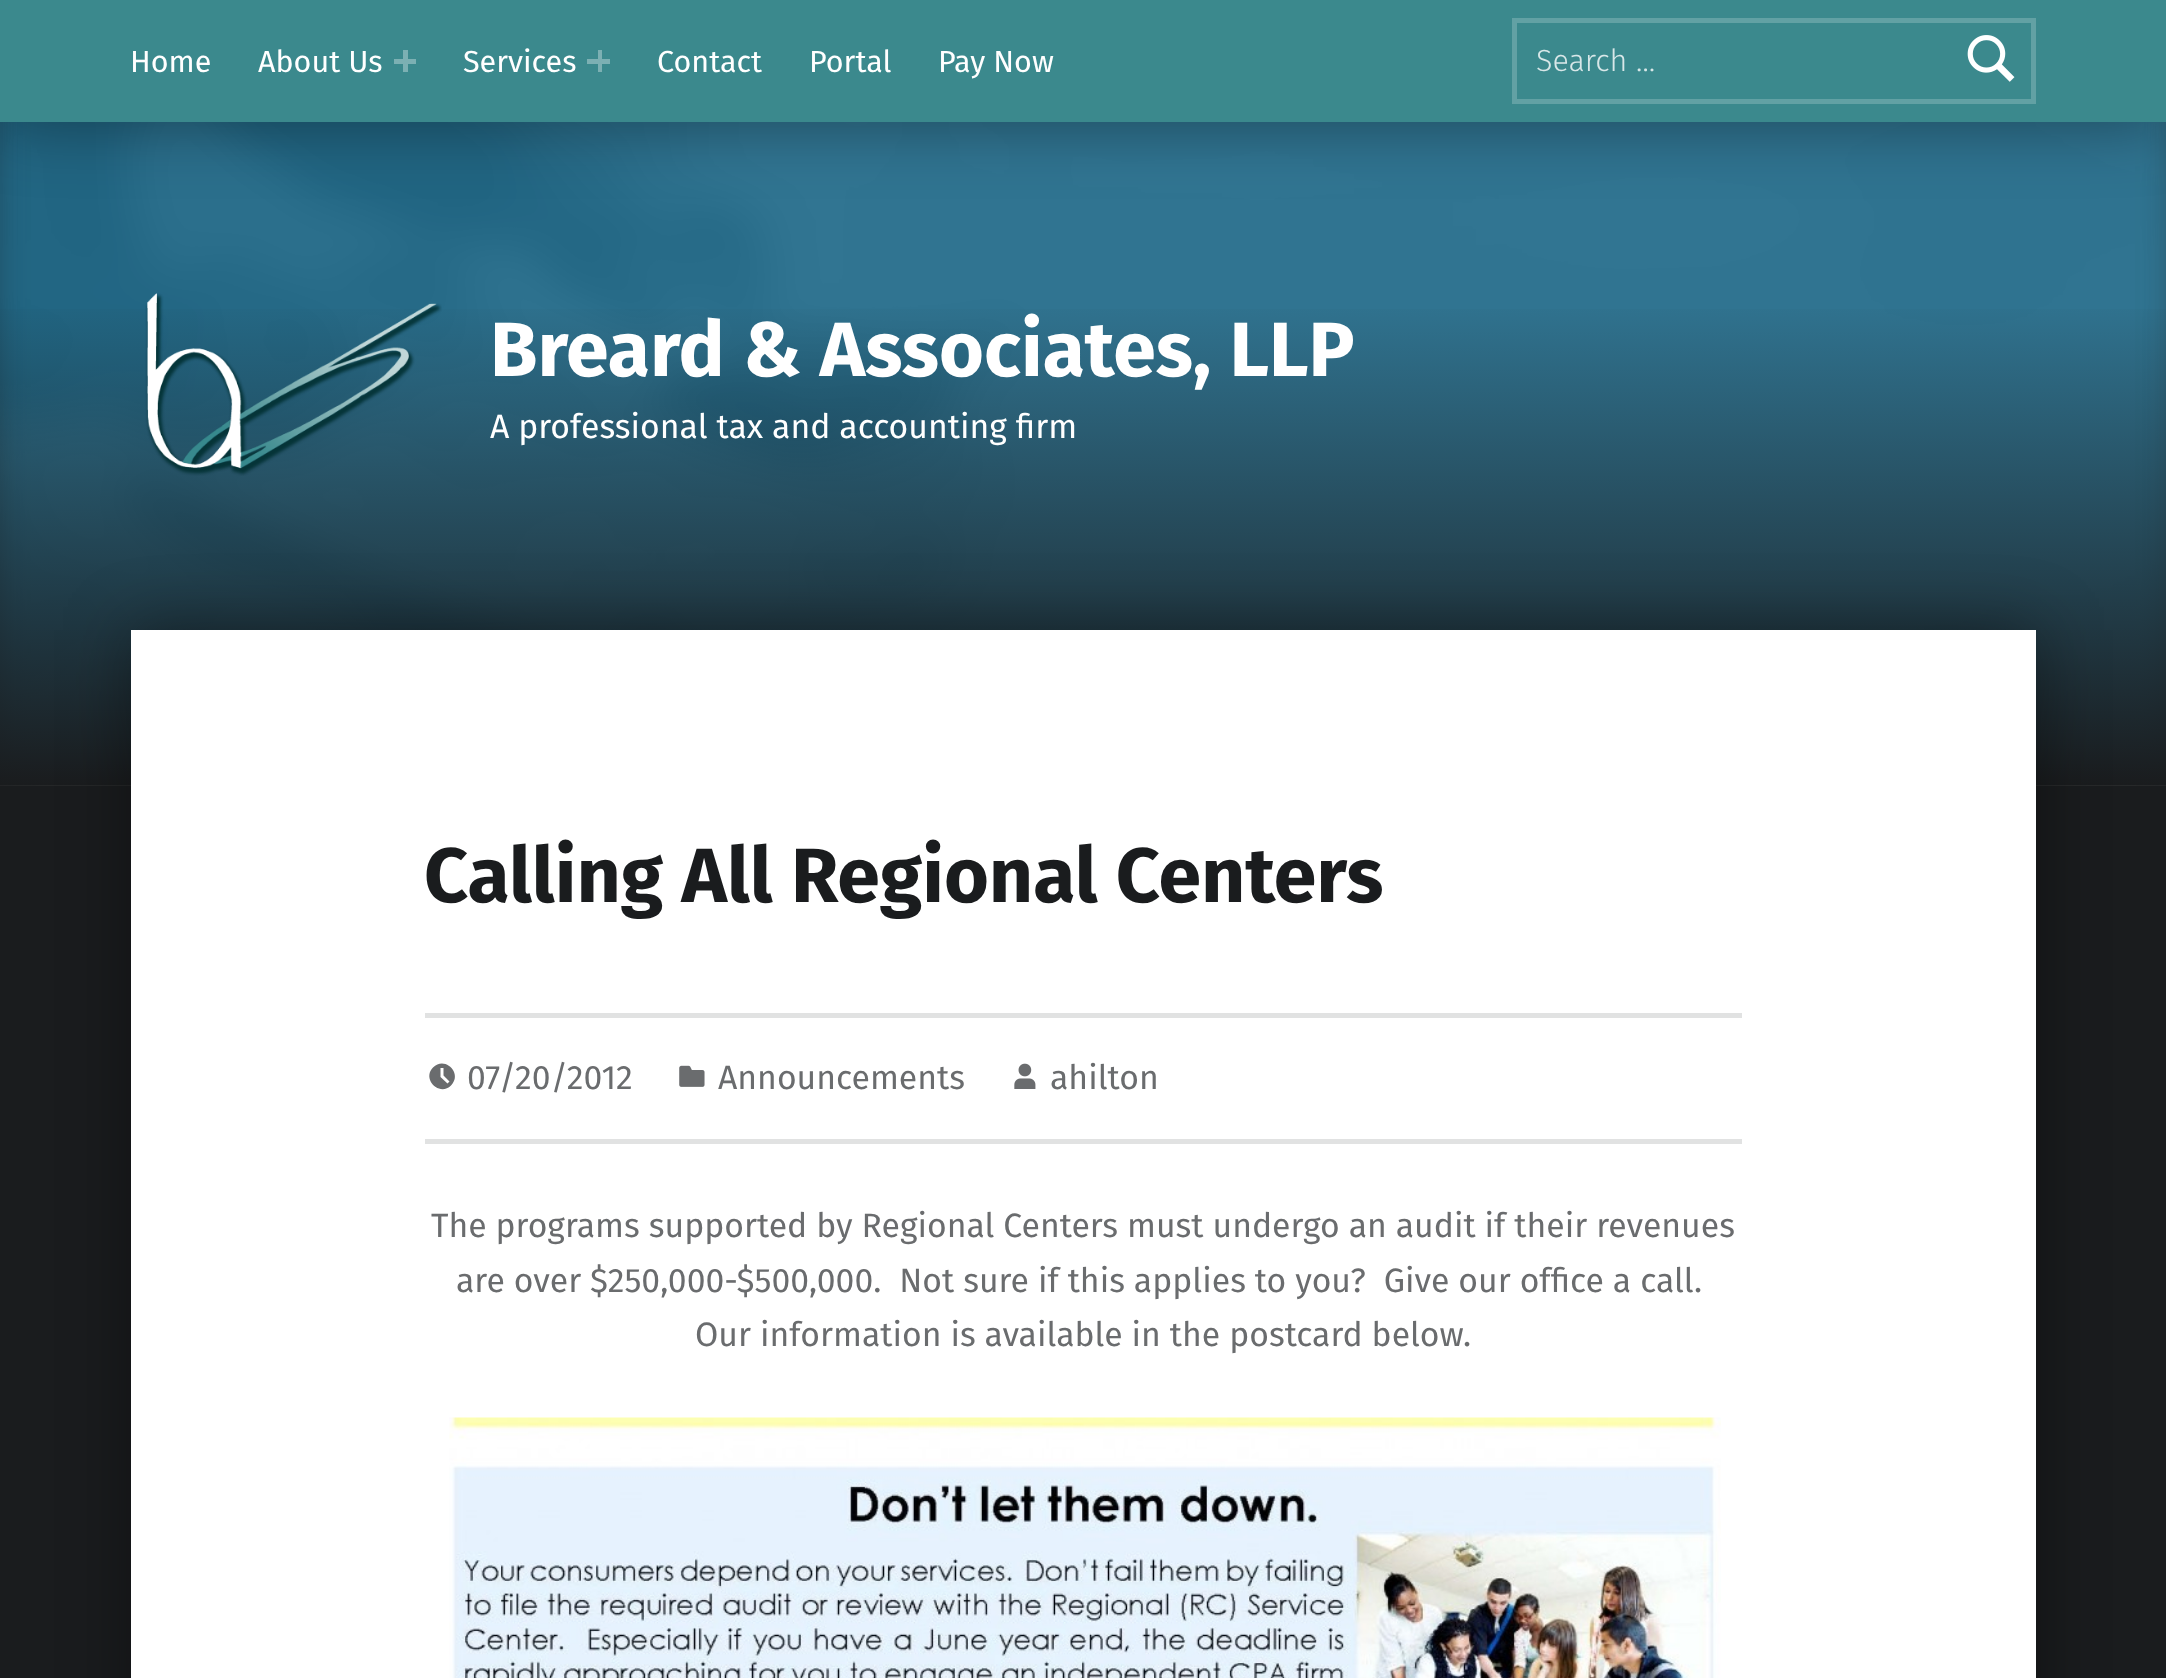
async function draw(canvas) {
	canvas.width = 2166;
	canvas.height = 1678;
	const c = canvas.getContext('2d');
	c.miterLimit = 4;
	c.fontKerning = 'normal';
	async function loadImage(src) {
		const img = new Image();
		img.src = src;
		await img.decode();
		return img;
	}
	let gradient;

	c.fillStyle = '#1a1c1e';
	c.fillRect(0, 0, 2166, 1678);
	c.drawImage(await loadImage('img3.png'), 0, 122, 2166, 664);
	c.fillStyle = '#00000066';
	c.filter = 'blur(34px)';
	c.beginPath();
	c.rect(0, 0, 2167, 122);
	c.fill();
	c.filter = 'none';
	c.fillStyle = '#3b898d';
	c.fillRect(0, 0, 2166, 122);
	c.font = '30.5px Fira Sans';
	c.fillStyle = '#fff';
	c.fillText('Home', 130, 72);
	c.fillText('About Us', 258, 72);
	c.fillStyle = '#7cb0b3';
	c.fillRect(394, 59, 22, 5);
	c.fillRect(403, 50, 5, 22);
	c.fillStyle = '#fff';
	c.fillText('Services', 463, 72);
	c.fillStyle = '#7cb0b3';
	c.fillRect(587, 59, 23, 5);
	c.fillRect(598, 50, 4, 22);
	c.fillStyle = '#fff';
	for (const [text, x, y] of [
		['Contact', 657, 72],
		['Portal', 809, 72],
		['Pay Now', 938, 72],
	]) {
		c.fillText(text, x, y);
	}
	c.strokeStyle = '#62a1a4';
	c.lineWidth = 5;
	c.strokeRect(1514.5, 20.5, 519, 81);
	c.font = '300 30.5px Fira Sans';
	c.fillStyle = '#d8e7e8';
	c.fillText('Search …', 1536, 71);
	c.drawImage(await loadImage('img1.png'), 1967, 35, 48, 47);
	gradient = c.createLinearGradient(1083, 297, 1083, 785);
	gradient.addColorStop(0, '#1a1c1e00');
	gradient.addColorStop(1, '#1a1c1e');
	c.fillStyle = gradient;
	c.fillRect(0, 309, 2166, 476);
	c.drawImage(await loadImage('img2.png'), 145, 293, 297, 183);
	c.font = 'bold 77px Fira Sans';
	c.fillStyle = '#fff';
	c.fillText('Breard & Associates, LLP', 490, 376);
	c.font = '33.75px Fira Sans';
	c.fillText('A professional tax and accounting firm', 490, 438);
	c.fillStyle = '#00000066';
	c.filter = 'blur(34px)';
	c.beginPath();
	c.rect(131, 630, 1905, 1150);
	c.fill();
	c.filter = 'none';
	c.fillStyle = '#fff';
	c.fillRect(131, 630, 1905, 1048);
	c.font = 'bold 77px Fira Sans';
	c.fillStyle = '#1a1c1e';
	c.fillText('Calling All Regional Centers', 424, 902);
	c.fillStyle = '#e1e2e2';
	c.fillRect(425, 1013, 1317, 5);
	c.fillRect(425, 1139, 1317, 5);
	c.fillStyle = '#6a6c6e';
	c.beginPath();
	c.moveTo(433, 1067.5);
	c.bezierCurveTo(445, 1055.5, 463, 1073.5, 451, 1085.5);
	c.bezierCurveTo(439.5, 1097, 421.5, 1079, 433, 1067.5);
	c.closePath();
	c.moveTo(447.5, 1083.5);
	c.lineTo(449.5, 1081.5);
	c.lineTo(443.5, 1075.5);
	c.lineTo(443.5, 1068);
	c.lineTo(440.5, 1068);
	c.lineTo(440.5, 1077);
	c.closePath();
	c.fill();
	c.font = '33.75px Fira Sans';
	c.fillText('07/20/2012', 467, 1089);
	c.drawImage(await loadImage('img4.png'), 679, 1065, 26, 22);
	c.fillText('Announcements', 718, 1089);
	c.drawImage(await loadImage('img5.png'), 1014, 1063, 22, 26);
	for (const [text, x, y] of [
		['ahilton', 1050, 1089],
		['The programs supported by Regional Centers must undergo an audit if their revenues', 431, 1237],
		['are over $250,000-$500,000.  Not sure if this applies to you?  Give our office a call.', 456, 1292],
		['Our information is available in the postcard below.', 695, 1346],
	]) {
		c.fillText(text, x, y);
	}
	c.drawImage(await loadImage('img6.png'), 449, 1417, 1272, 261);
}

draw(document.querySelector('canvas'));
